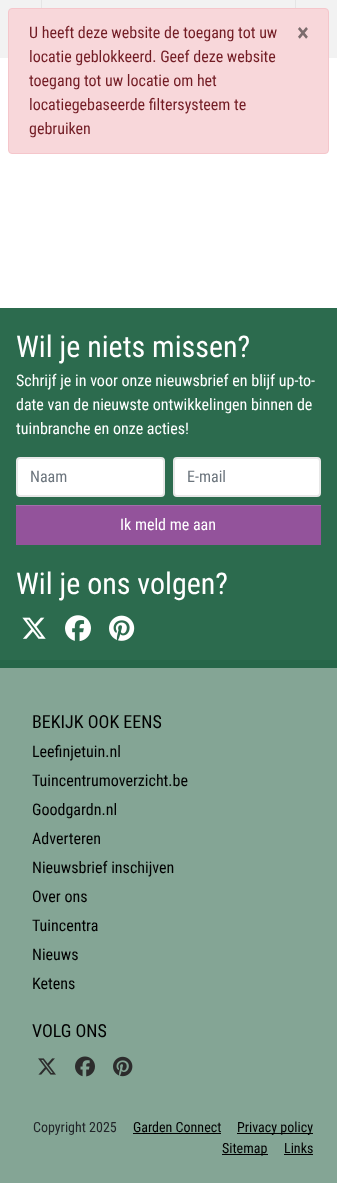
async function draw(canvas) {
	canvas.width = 337;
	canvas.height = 1183;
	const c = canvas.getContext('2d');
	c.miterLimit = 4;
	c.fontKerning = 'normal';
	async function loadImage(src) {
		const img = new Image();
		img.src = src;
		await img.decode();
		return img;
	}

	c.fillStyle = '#84a595';
	c.fillRect(0, 0, 337, 1183);
	for (const [x, y, w, h, color] of [
		[0, 660, 337, 8, '#266649'],
		[0, 0, 337, 58, '#f2f2f2'],
		[41, 0, 1, 8, '#e5e5e5'],
		[295, 0, 1, 8, '#e5e5e5'],
		[0, 58, 337, 250, '#fff'],
	]) {
		c.fillStyle = color;
		c.fillRect(x, y, w, h);
	}
	c.fillStyle = '#f8d7da';
	c.beginPath();
	c.roundRect(8.5, 8.5, 320, 145, 3.5);
	c.fill();
	c.strokeStyle = '#f5c6cb';
	c.stroke();
	c.font = '16px Roboto Condensed';
	c.fillStyle = '#721c24';
	c.fillText('U heeft deze website de toegang tot uw', 29, 38);
	c.font = 'bold 24px Roboto Condensed';
	c.fillStyle = '#7c6c6d';
	c.fillText('×', 297, 41);
	c.font = '16px Roboto Condensed';
	c.fillStyle = '#721c24';
	for (const [text, x, y] of [
		['locatie geblokkeerd. Geef deze website', 29, 62],
		['toegang tot uw locatie om het', 29, 86],
		['locatiegebaseerde filtersysteem te', 29, 110],
		['gebruiken', 29, 134],
	]) {
		c.fillText(text, x, y);
	}
	c.fillStyle = '#2c6b4e';
	c.fillRect(0, 308, 337, 352);
	c.font = '30px Roboto Condensed';
	c.fillStyle = '#fff';
	c.fillText('Wil je niets missen?', 16, 357);
	c.font = '16px Roboto Condensed';
	for (const [text, x, y] of [
		['Schrijf je in voor onze nieuwsbrief en blijf up-to-', 16, 386],
		['date van de nieuwste ontwikkelingen binnen de', 16, 410],
		['tuinbranche en onze acties!', 16, 434],
	]) {
		c.fillText(text, x, y);
	}
	c.beginPath();
	c.roundRect(17, 458, 147, 38, 3);
	c.fill();
	c.strokeStyle = '#e8e8e8';
	c.lineWidth = 2;
	c.stroke();
	c.fillStyle = '#6c757d';
	c.fillText('Naam', 30, 482);
	c.fillStyle = '#fff';
	c.beginPath();
	c.roundRect(174, 458, 146, 38, 3);
	c.fill();
	c.stroke();
	c.fillStyle = '#6c757d';
	c.fillText('E-mail', 187, 482);
	c.fillStyle = '#93539b';
	c.fillRect(16, 506, 305, 39);
	c.fillStyle = '#a36daa';
	c.fillRect(16, 505, 305, 1);
	c.fillStyle = '#fff';
	c.fillText('Ik meld me aan', 120, 530);
	c.font = '30px Roboto Condensed';
	c.fillText('Wil je ons volgen?', 16, 594);
	c.drawImage(await loadImage('img1.png'), 22, 617, 24, 22);
	c.drawImage(await loadImage('img2.png'), 65, 615, 26, 27);
	c.drawImage(await loadImage('img3.png'), 109, 615, 26, 26);
	c.font = '18px Roboto Condensed';
	c.fillStyle = '#000';
	c.fillText('BEKIJK OOK EENS', 32, 728);
	c.font = '16px Roboto Condensed';
	for (const [text, x, y] of [
		['Leefinjetuin.nl', 32, 757],
		['Tuincentrumoverzicht.be', 32, 786],
		['Goodgardn.nl', 32, 815],
		['Adverteren', 32, 844],
		['Nieuwsbrief inschijven', 32, 873],
		['Over ons', 32, 902],
		['Tuincentra', 32, 931],
		['Nieuws', 32, 960],
		['Ketens', 32, 989],
	]) {
		c.fillText(text, x, y);
	}
	c.font = '18px Roboto Condensed';
	c.fillText('VOLG ONS', 32, 1037);
	c.drawImage(await loadImage('img4.png'), 38, 1058, 18, 17);
	c.drawImage(await loadImage('img5.png'), 75, 1056, 20, 21);
	c.drawImage(await loadImage('img6.png'), 113, 1056, 20, 21);
	c.font = '14px Roboto Condensed';
	c.fillStyle = '#212529';
	c.fillText('Copyright 2025', 33, 1132);
	c.fillStyle = '#000';
	c.fillText('Garden Connect', 133, 1132);
	c.fillRect(133, 1133, 88, 1);
	c.fillRect(237, 1133, 76, 1);
	c.fillText('Privacy policy', 237, 1132);
	c.fillRect(222, 1154, 46, 1);
	c.fillText('Sitemap', 222, 1153);
	c.fillText('Links', 284, 1153);
	c.fillRect(284, 1154, 29, 1);
}

draw(document.querySelector('canvas'));
